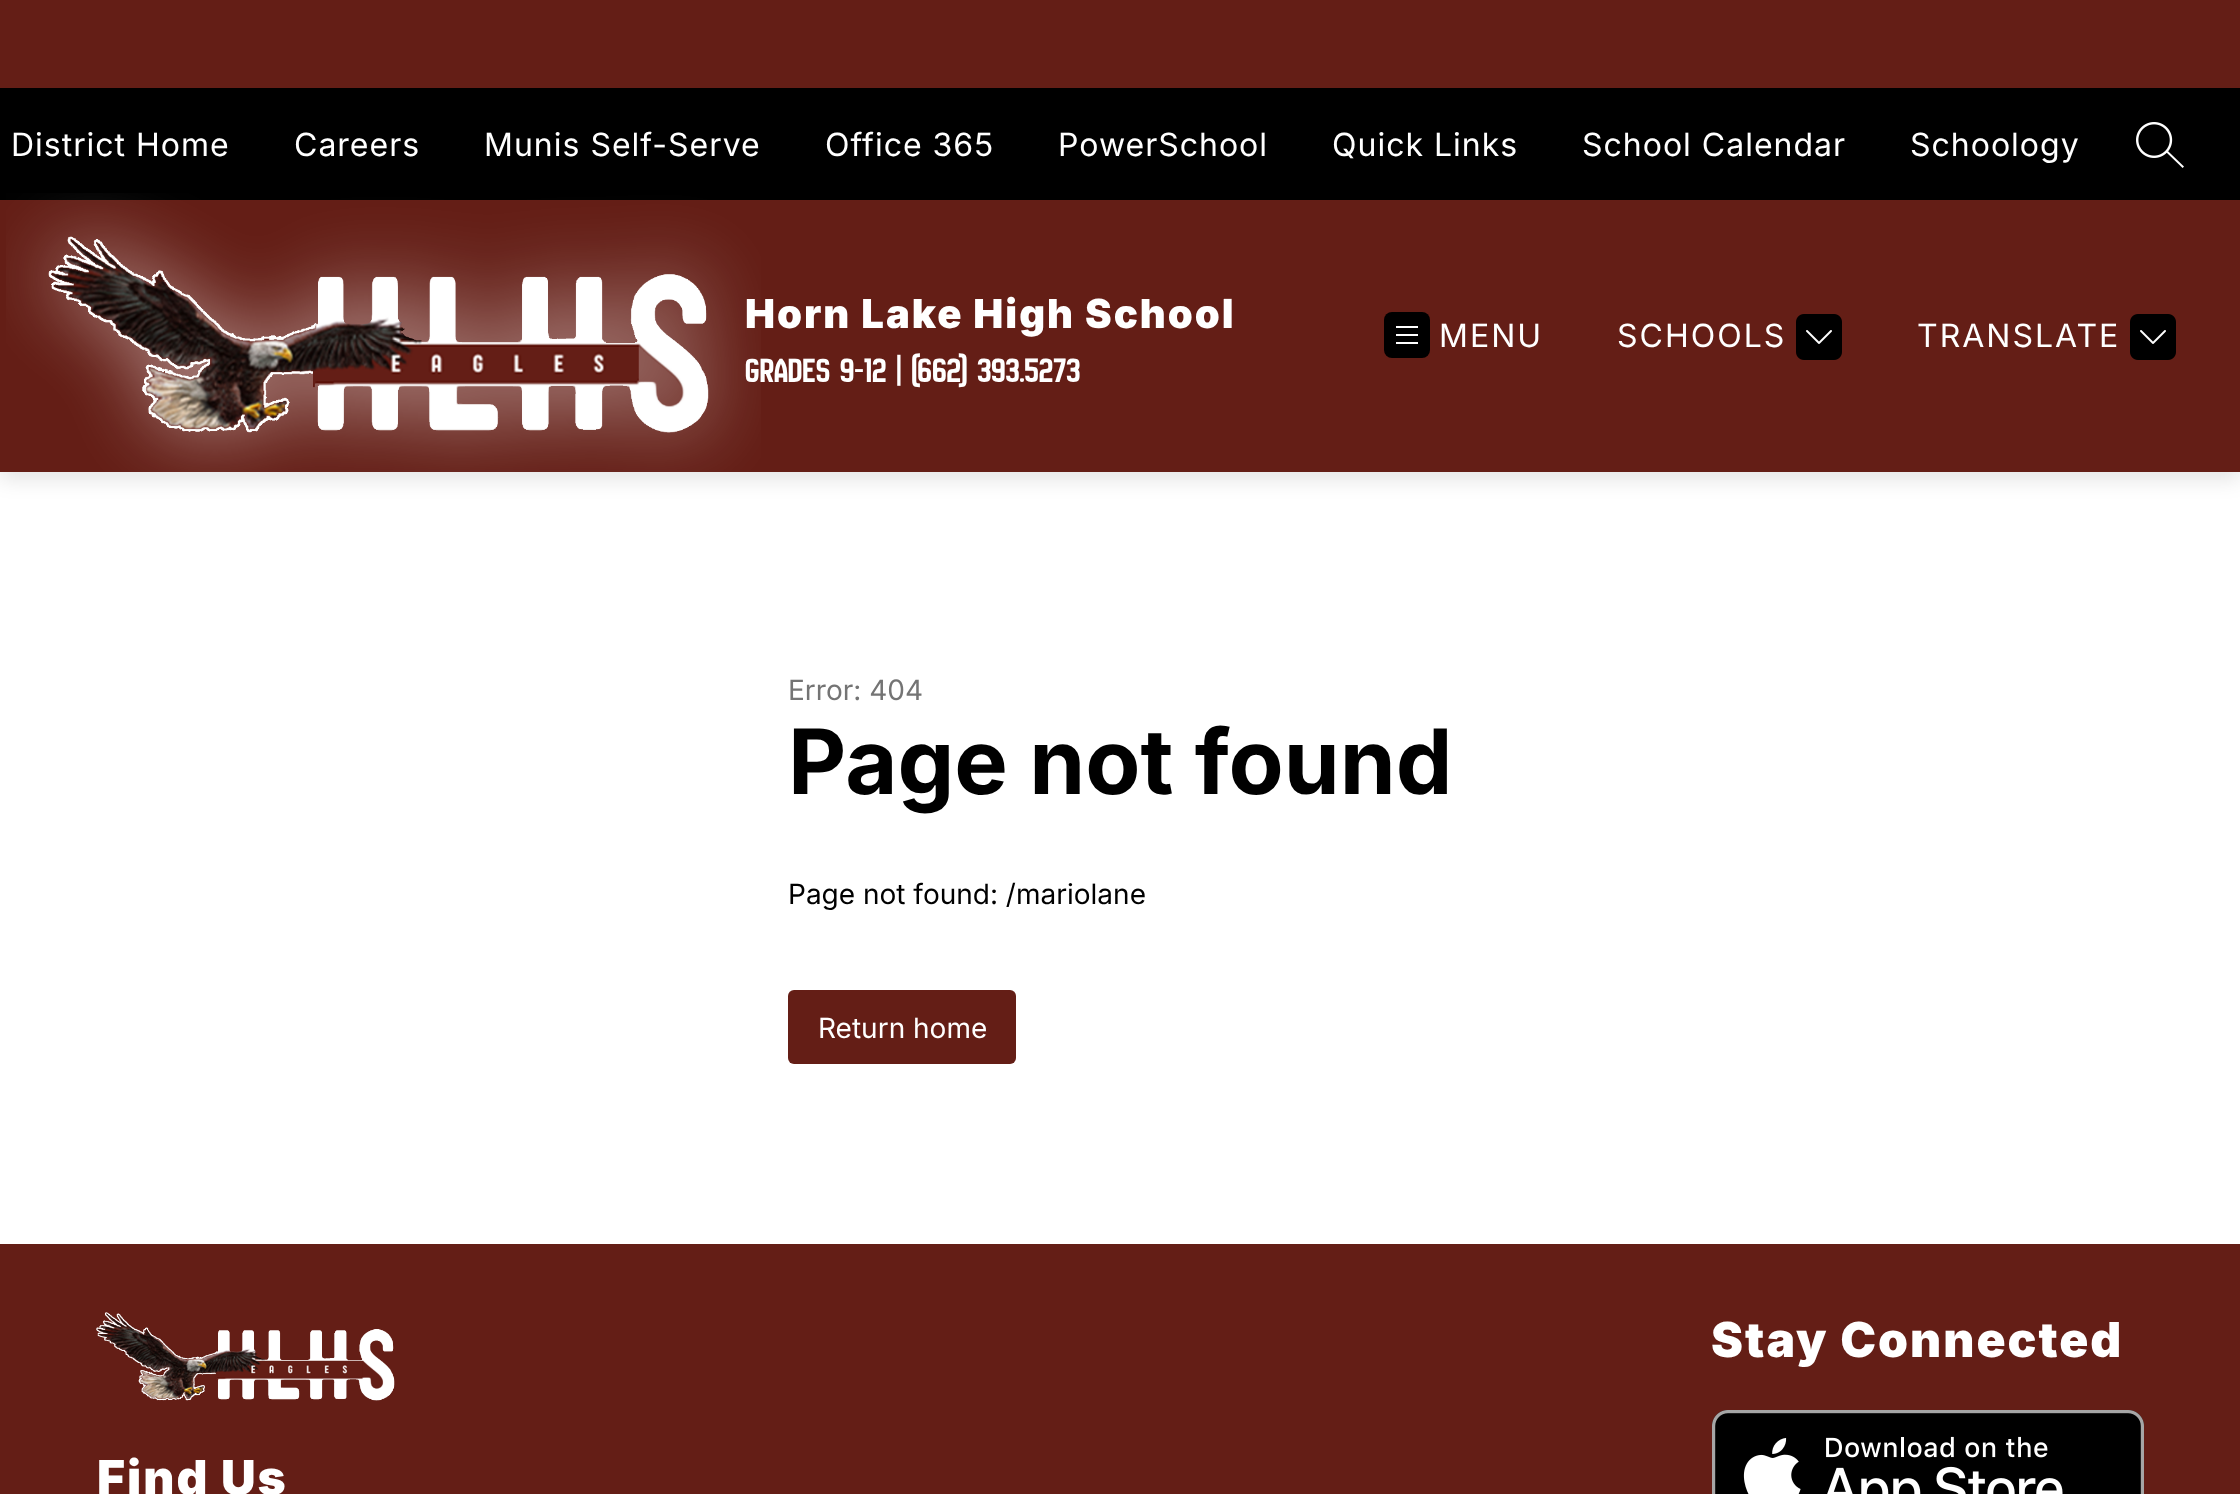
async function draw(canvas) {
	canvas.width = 2240;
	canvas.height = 1494;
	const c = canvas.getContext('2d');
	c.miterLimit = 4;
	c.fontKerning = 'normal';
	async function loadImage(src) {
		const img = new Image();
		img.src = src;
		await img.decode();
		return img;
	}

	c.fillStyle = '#fff';
	c.fillRect(0, 0, 2240, 1494);
	c.fillStyle = '#0000001a';
	c.filter = 'blur(10px)';
	c.beginPath();
	c.rect(0, 8, 2240, 472);
	c.fill();
	c.filter = 'none';
	c.fillStyle = '#641e16';
	c.fillRect(0, 0, 2240, 472);
	c.fillStyle = '#000';
	c.fillRect(0, 88, 2240, 112);
	c.letterSpacing = '1px';
	c.font = '32px Inter';
	c.fillStyle = '#fff';
	for (const [text, x, y] of [
		['District Home', 11, 156],
		['Careers', 294, 156],
		['Munis Self-Serve', 484, 156],
		['Office 365', 825, 156],
		['PowerSchool', 1058, 156],
		['Quick Links', 1332, 156],
		['School Calendar', 1582, 156],
		['Schoology', 1910, 156],
	]) {
		c.fillText(text, x, y);
	}
	c.drawImage(await loadImage('img1.png'), 2136, 122, 48, 46);
	c.letterSpacing = '2px';
	c.font = '900 40px Inter';
	c.fillText('Horn Lake High School', 745, 328);
	c.letterSpacing = '0px';
	c.font = '36px New Amsterdam';
	c.fillText('Grades 9-12 | (662) 393.5273', 745, 382);
	c.drawImage(await loadImage('img2.png'), 6, 193, 755, 279);
	c.fillStyle = '#000';
	c.beginPath();
	c.roundRect(1384, 312, 46, 46, 8);
	c.fill();
	c.fillStyle = '#fff';
	c.beginPath();
	c.moveTo(1396, 326);
	c.lineTo(1418, 326);
	c.lineTo(1418, 328);
	c.lineTo(1396, 328);
	c.closePath();
	c.moveTo(1396, 334);
	c.lineTo(1418, 334);
	c.lineTo(1418, 336);
	c.lineTo(1396, 336);
	c.closePath();
	c.moveTo(1418, 342);
	c.lineTo(1396, 342);
	c.lineTo(1396, 344);
	c.lineTo(1418, 344);
	c.closePath();
	c.fill('evenodd');
	c.letterSpacing = '2px';
	c.font = '32px Inter';
	c.fillText('MENU', 1439, 347);
	c.fillText('SCHOOLS', 1617, 347);
	c.drawImage(await loadImage('img3.png'), 1796, 314, 46, 46);
	c.fillText('TRANSLATE', 1917, 347);
	c.drawImage(await loadImage('img3.png'), 2130, 314, 46, 46);
	c.letterSpacing = '0px';
	c.font = '28px Inter';
	c.fillStyle = '#747474';
	c.fillText('Error: 404', 788, 700);
	c.font = 'bold 90px Inter';
	c.fillStyle = '#000';
	c.fillText('Page not found', 788, 794);
	c.font = '28px Inter';
	c.fillText('Page not found: /mariolane', 788, 904);
	c.fillStyle = '#641e16';
	c.beginPath();
	c.roundRect(788, 990, 228, 74, 6);
	c.fill();
	c.fillStyle = '#fff';
	c.fillText('Return home', 818, 1038);
	c.fillStyle = '#641e16';
	c.fillRect(0, 1244, 2240, 250);
	c.letterSpacing = '2px';
	c.font = '900 48px Inter';
	c.fillStyle = '#fff';
	c.fillText('Stay Connected', 1711, 1357);
	c.drawImage(await loadImage('img4.png'), 1712, 1410, 432, 84);
	c.drawImage(await loadImage('img5.png'), 96, 1312, 299, 89);
	c.fillText('Find Us', 97, 1495);
}

draw(document.querySelector('canvas'));
